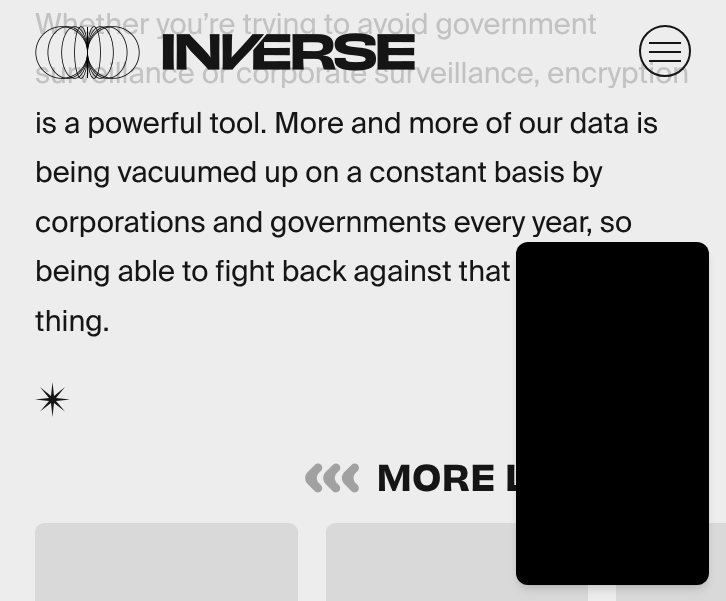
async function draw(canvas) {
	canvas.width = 726;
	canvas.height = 601;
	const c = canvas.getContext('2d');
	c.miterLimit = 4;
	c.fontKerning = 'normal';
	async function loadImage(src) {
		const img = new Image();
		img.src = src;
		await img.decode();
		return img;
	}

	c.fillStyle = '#ededed';
	c.fillRect(0, 0, 726, 601);
	c.font = '29.1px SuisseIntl';
	c.fillStyle = '#c2c2c2';
	c.fillText('Whether you’re trying to avoid government', 35, 34);
	c.fillText('surveillance or corporate surveillance, encryption', 35, 83);
	c.fillStyle = '#151515';
	for (const [text, x, y] of [
		['is a powerful tool. More and more of our data is', 35, 133],
		['being vacuumed up on a constant basis by', 35, 182],
		['corporations and governments every year, so', 35, 232],
		['being able to fight back against that', 35, 281],
		['thing.', 35, 331],
	]) {
		c.fillText(text, x, y);
	}
	c.beginPath();
	c.moveTo(52.5, 382);
	c.lineTo(54, 396);
	c.lineTo(65, 387);
	c.lineTo(56, 398);
	c.lineTo(70, 399.5);
	c.lineTo(56, 401);
	c.lineTo(65, 411.5);
	c.lineTo(54, 403);
	c.lineTo(52.5, 417);
	c.lineTo(51, 403);
	c.lineTo(40, 411.5);
	c.lineTo(49, 401);
	c.lineTo(35, 399.5);
	c.lineTo(49, 398);
	c.lineTo(40, 387);
	c.lineTo(51, 396);
	c.closePath();
	c.fill();
	c.drawImage(await loadImage('img1.png'), 305, 463, 54, 30);
	c.letterSpacing = '-0.5px';
	c.font = '600 35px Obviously';
	c.fillText('MORE L', 376, 491);
	c.fillStyle = '#d9d9d9';
	c.beginPath();
	c.roundRect(35, 523, 263, 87, 9);
	c.fill();
	c.beginPath();
	c.roundRect(326, 523, 262, 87, 9);
	c.fill();
	c.fillRect(616, 523, 110, 78);
	c.drawImage(await loadImage('img2.png'), 35, 26, 105, 53);
	c.drawImage(await loadImage('img3.png'), 162, 33, 253, 38);
	c.beginPath();
	c.arc(665, 51, 25, 0, 2 * Math.PI);
	c.strokeStyle = '#151515';
	c.lineWidth = 2;
	c.stroke();
	for (const [x, y, w, h, color] of [
		[649, 42, 32, 2, '#151515'],
		[649, 60, 32, 2, '#151515'],
		[649, 51, 32, 2, '#151515'],
	]) {
		c.fillStyle = color;
		c.fillRect(x, y, w, h);
	}
	c.fillStyle = '#0000001a';
	c.filter = 'blur(3.5px)';
	c.beginPath();
	c.roundRect(520, 249, 185, 336, 9);
	c.fill();
	c.filter = 'none';
	c.filter = 'blur(5px)';
	c.beginPath();
	c.roundRect(518, 250, 189, 340, 11);
	c.fill();
	c.filter = 'none';
	c.fillStyle = '#000';
	c.beginPath();
	c.roundRect(516, 242, 193, 343, 12);
	c.fill();
}

draw(document.querySelector('canvas'));
